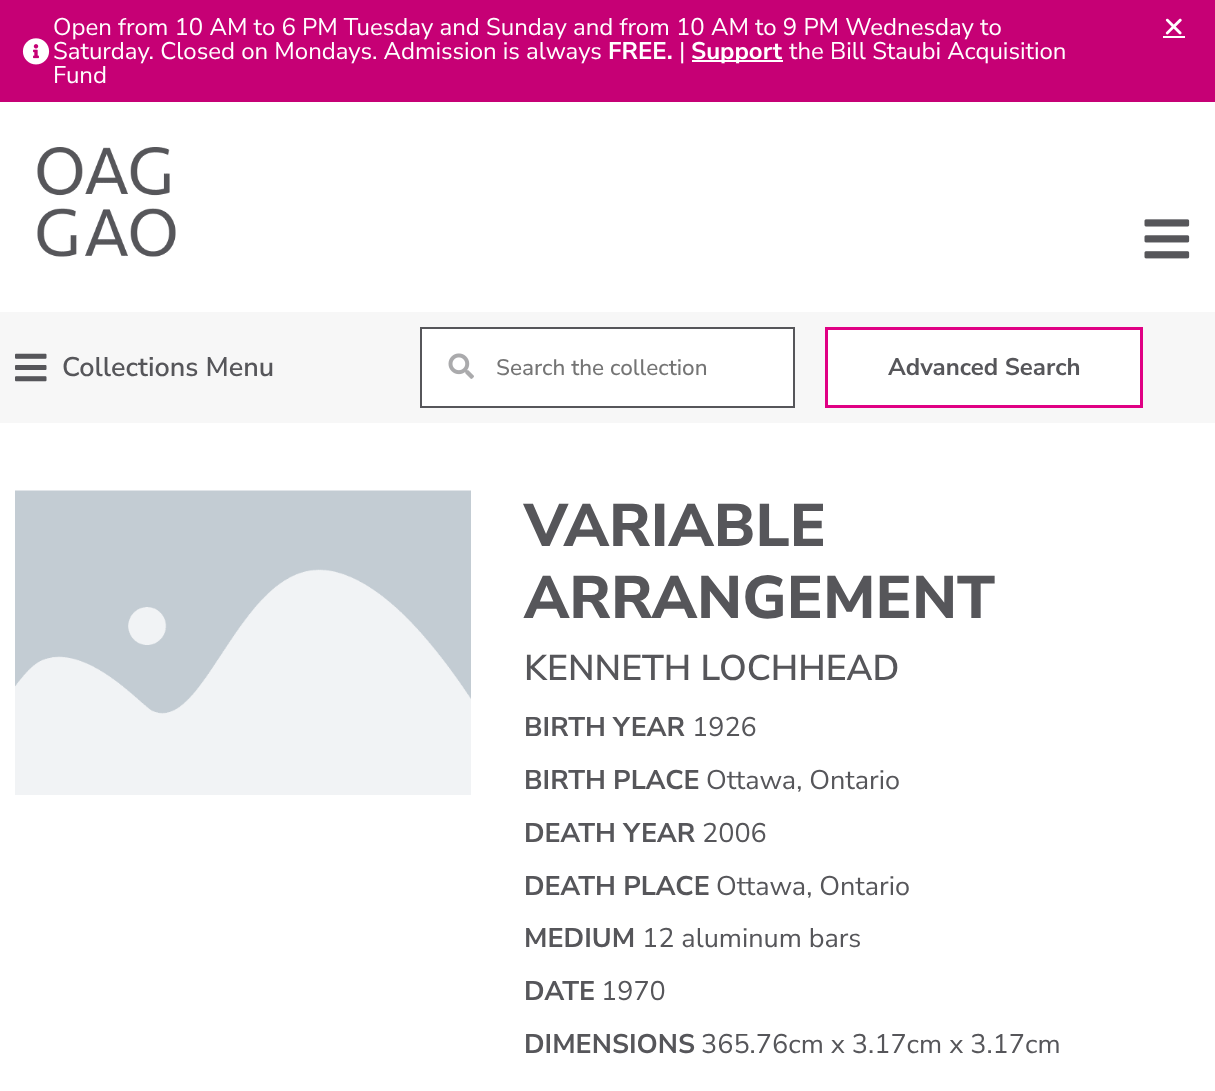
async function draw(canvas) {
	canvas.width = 1215;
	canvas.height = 1091;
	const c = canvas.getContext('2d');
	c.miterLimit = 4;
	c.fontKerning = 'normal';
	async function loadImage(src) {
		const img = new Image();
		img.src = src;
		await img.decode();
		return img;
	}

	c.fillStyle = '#fff';
	c.fillRect(0, 0, 1215, 1091);
	c.fillStyle = '#c60075';
	c.fillRect(0, 0, 1215, 102);
	c.drawImage(await loadImage('img1.png'), 22, 38, 28, 27);
	c.font = '24px Nunito Sans';
	c.fillStyle = '#fff';
	c.fillText('Open from 10 AM to 6 PM Tuesday and Sunday and from 10 AM to 9 PM Wednesday to', 53, 35);
	c.fillText('Saturday. Closed on Mondays. Admission is always', 53, 59);
	c.font = 'bold 24px Nunito Sans';
	c.fillText('FREE.', 608, 59);
	c.font = '24px Nunito Sans';
	c.fillText('|', 679, 59);
	c.fillRect(692, 60, 91, 2);
	c.font = 'bold 24px Nunito Sans';
	c.fillText('Support', 691, 59);
	c.font = '24px Nunito Sans';
	c.fillText('the Bill Staubi Acquisition', 789, 59);
	c.fillText('Fund', 53, 83);
	c.drawImage(await loadImage('img2.png'), 1165, 18, 17, 17);
	c.fillRect(1163, 36, 22, 2);
	c.drawImage(await loadImage('img3.png'), 37, 147, 139, 110);
	c.drawImage(await loadImage('img4.png'), 1144, 219, 46, 40);
	c.fillStyle = '#f7f7f7';
	c.fillRect(0, 312, 1215, 111);
	c.drawImage(await loadImage('img5.png'), 15, 353, 32, 29);
	c.font = '600 27px Nunito Sans';
	c.fillStyle = '#56565a';
	c.fillText('Collections Menu', 62, 376);
	c.fillStyle = '#fff';
	c.beginPath();
	c.rect(421, 328, 373, 79);
	c.fill();
	c.strokeStyle = '#56565a';
	c.lineWidth = 2;
	c.stroke();
	c.drawImage(await loadImage('img6.png'), 448, 353, 26, 26);
	c.font = '500 22.5px Nunito Sans';
	c.fillStyle = '#757575';
	c.fillText('Search the collection', 496, 375);
	c.fillStyle = '#fff';
	c.beginPath();
	c.rect(826.5, 328.5, 315, 78);
	c.fill();
	c.strokeStyle = '#e00084';
	c.lineWidth = 3;
	c.stroke();
	c.font = 'bold 24px Nunito Sans';
	c.fillStyle = '#56565a';
	c.fillText('Advanced Search', 888, 375);
	c.drawImage(await loadImage('img7.png'), 15, 490, 456, 305);
	c.font = '800 60px Nunito Sans';
	c.fillText('VARIABLE', 524, 546);
	c.fillText('ARRANGEMENT', 524, 618);
	c.font = '600 35.75px Nunito Sans';
	c.fillText('KENNETH LOCHHEAD', 524, 680);
	c.font = 'bold 27px Nunito Sans';
	c.fillText('BIRTH YEAR', 524, 736);
	c.font = '27px Nunito Sans';
	c.fillText('1926', 692, 736);
	c.font = 'bold 27px Nunito Sans';
	c.fillText('BIRTH PLACE', 524, 789);
	c.font = '27px Nunito Sans';
	c.fillText('Ottawa, Ontario', 706, 789);
	c.font = 'bold 27px Nunito Sans';
	c.fillText('DEATH YEAR', 524, 842);
	c.font = '27px Nunito Sans';
	c.fillText('2006', 702, 842);
	c.font = 'bold 27px Nunito Sans';
	c.fillText('DEATH PLACE', 524, 895);
	c.font = '27px Nunito Sans';
	c.fillText('Ottawa, Ontario', 716, 895);
	c.font = 'bold 27px Nunito Sans';
	c.fillText('MEDIUM', 524, 947);
	c.font = '27px Nunito Sans';
	c.fillText('12 aluminum bars', 642, 947);
	c.font = 'bold 27px Nunito Sans';
	c.fillText('DATE', 524, 1000);
	c.font = '27px Nunito Sans';
	c.fillText('1970', 601, 1000);
	c.font = 'bold 27px Nunito Sans';
	c.fillText('DIMENSIONS', 524, 1053);
	c.font = '27px Nunito Sans';
	c.fillText('365.76cm x 3.17cm x 3.17cm', 701, 1053);
}

draw(document.querySelector('canvas'));
